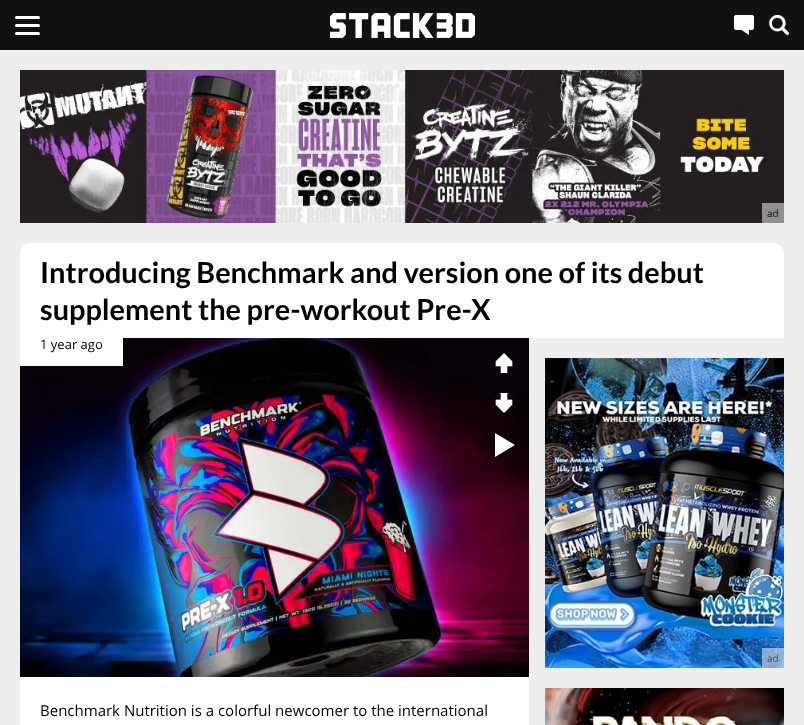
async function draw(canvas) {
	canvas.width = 804;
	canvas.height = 725;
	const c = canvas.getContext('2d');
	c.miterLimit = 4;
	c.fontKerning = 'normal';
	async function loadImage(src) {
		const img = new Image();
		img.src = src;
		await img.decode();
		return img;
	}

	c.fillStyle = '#eee';
	c.fillRect(0, 0, 804, 725);
	c.fillStyle = '#111';
	c.fillRect(0, 0, 804, 50);
	c.fillStyle = '#fff';
	c.beginPath();
	c.roundRect(15, 24, 25, 3, 1.5);
	c.fill();
	c.beginPath();
	c.roundRect(15, 16, 25, 3, 1.5);
	c.fill();
	c.beginPath();
	c.roundRect(15, 32, 25, 3, 1.5);
	c.fill();
	c.drawImage(await loadImage('img1.png'), 330, 13, 145, 25);
	c.drawImage(await loadImage('img2.png'), 734, 15, 20, 20);
	c.drawImage(await loadImage('img3.png'), 769, 15, 20, 20);
	c.drawImage(await loadImage('img4.png'), 20, 70, 764, 153);
	c.fillStyle = '#928f90';
	c.fillRect(762, 203, 22, 20);
	c.font = '10px Open Sans';
	c.fillStyle = '#121011';
	c.fillText('ad', 767, 217);
	c.fillStyle = '#fff';
	c.beginPath();
	c.roundRect(20, 243, 764, 95, [10, 10, 0, 0]);
	c.fill();
	c.font = 'bold 28.9px Lato';
	c.fillStyle = '#000';
	c.fillText('Introducing Benchmark and version one of its debut', 40, 283);
	c.fillText('supplement the pre-workout Pre-X', 40, 320);
	c.drawImage(await loadImage('img7.png'), 20, 338, 509, 339);
	c.fillStyle = '#fff';
	c.fillRect(20, 338, 103, 28);
	c.font = '13px Open Sans';
	c.fillStyle = '#000';
	c.fillText('1 year ago', 40, 349);
	c.fillStyle = '#0000001a';
	c.fillRect(479, 425, 50, 47);
	c.drawImage(await loadImage('img5.png'), 495, 353, 18, 20);
	c.drawImage(await loadImage('img6.png'), 495, 393, 18, 20);
	c.fillStyle = '#fff';
	c.beginPath();
	c.moveTo(495, 457);
	c.lineTo(495, 433);
	c.lineTo(515, 445);
	c.closePath();
	c.fill();
	c.fillRect(20, 677, 509, 48);
	c.font = '15px Open Sans';
	c.fillStyle = '#000';
	c.fillText('Benchmark Nutrition is a colorful newcomer to the international', 40, 716);
	c.drawImage(await loadImage('img8.png'), 545, 358, 239, 310);
	c.fillStyle = '#ffffff80';
	c.fillRect(762, 648, 22, 20);
	c.font = '10px Open Sans';
	c.fillStyle = '#455567';
	c.fillText('ad', 767, 662);
	c.drawImage(await loadImage('img9.png'), 545, 688, 239, 37);
}

draw(document.querySelector('canvas'));
